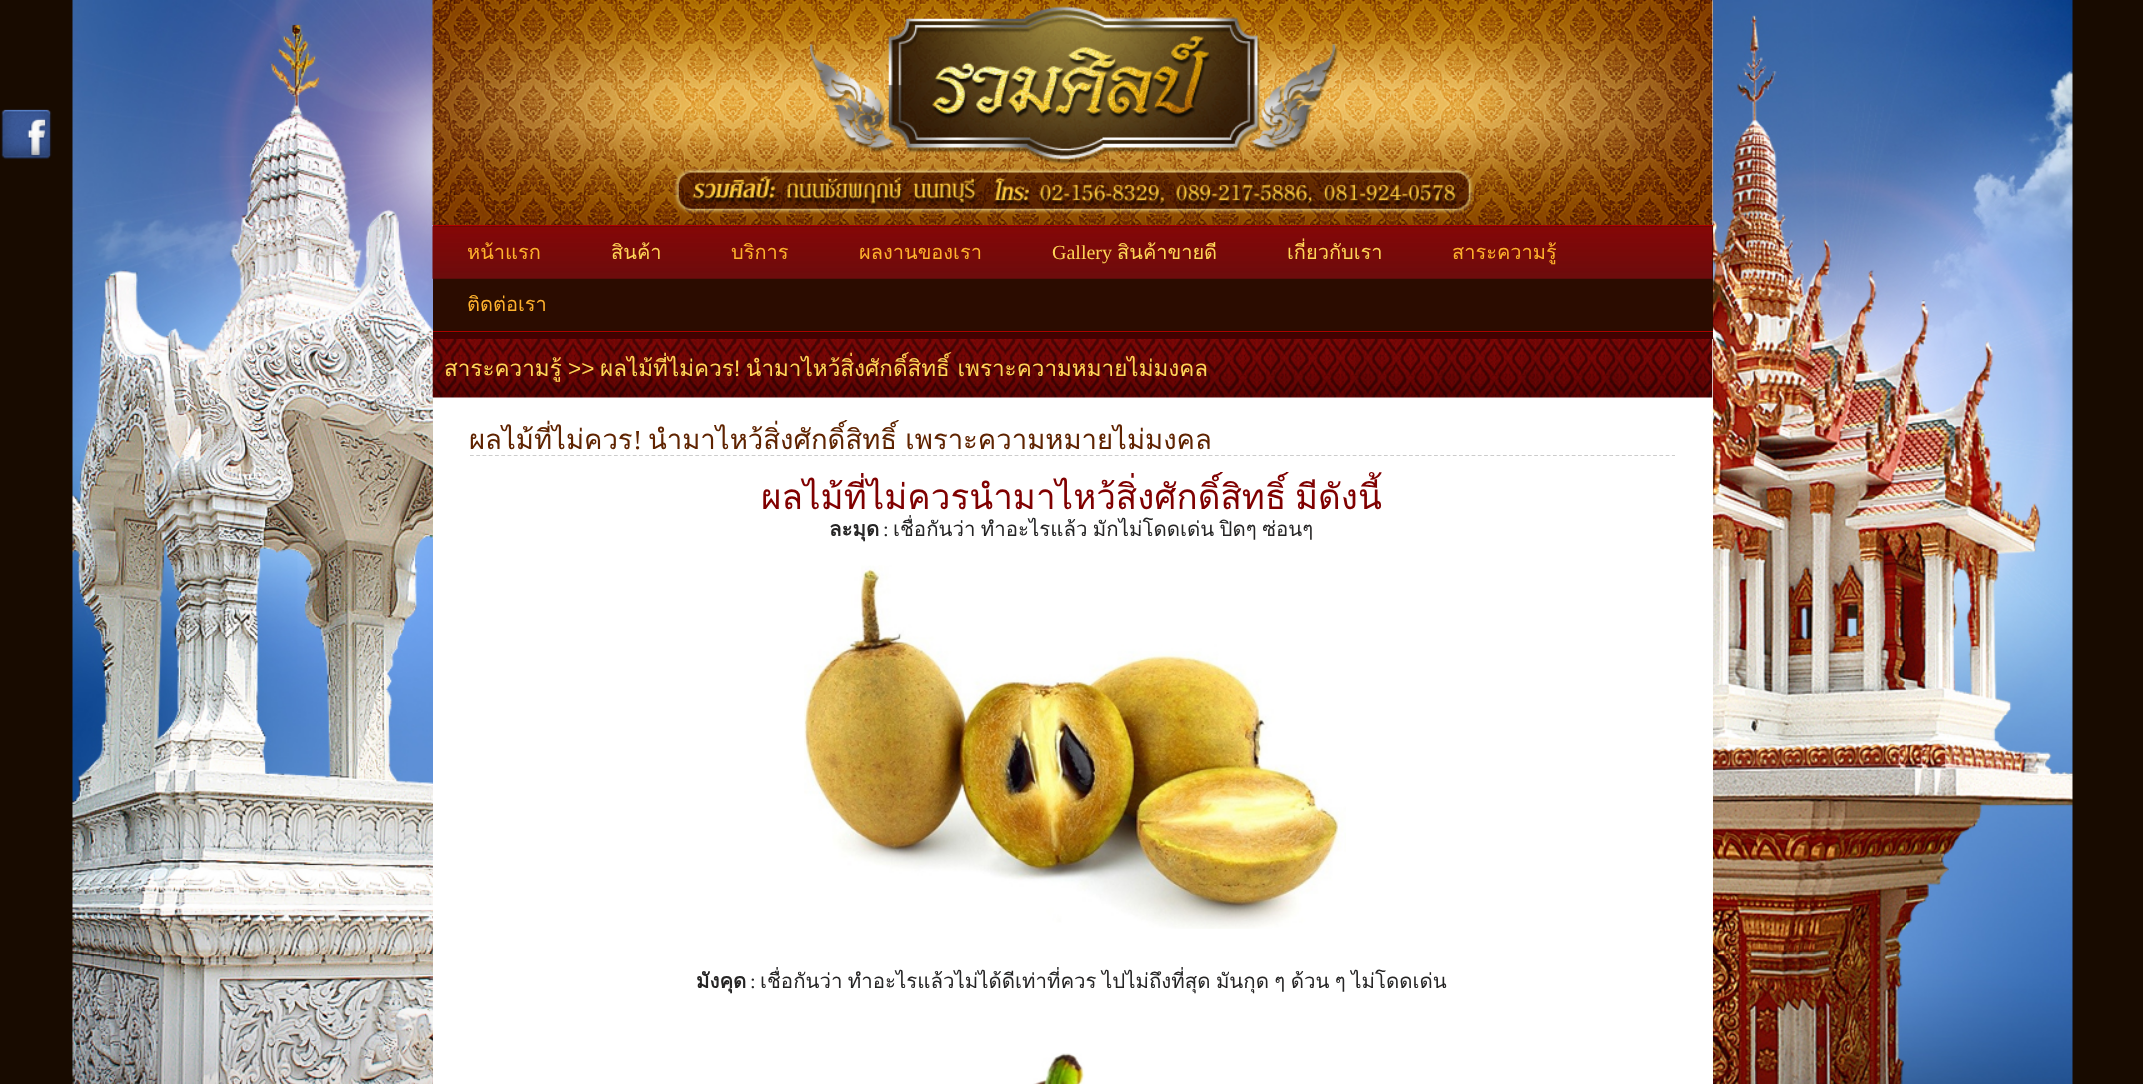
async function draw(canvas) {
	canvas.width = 2143;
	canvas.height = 1084;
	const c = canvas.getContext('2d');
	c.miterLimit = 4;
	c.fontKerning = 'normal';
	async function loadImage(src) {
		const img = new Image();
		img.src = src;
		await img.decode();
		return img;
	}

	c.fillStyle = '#180b00';
	c.fillRect(0, 0, 2143, 1084);
	c.drawImage(await loadImage('img1.png'), 72, 0, 2001, 1084);
	c.drawImage(await loadImage('img2.png'), 1, 109, 51, 50);
	c.fillStyle = '#fff';
	c.fillRect(433, 0, 1280, 1084);
	c.drawImage(await loadImage('img3.png'), 432, 0, 1281, 225);
	c.fillStyle = '#2b0c00';
	c.fillRect(433, 226, 1280, 107);
	c.drawImage(await loadImage('img4.png'), 432, 226, 1281, 53);
	c.fillStyle = '#af0000';
	c.fillRect(433, 225, 1280, 1);
	c.fillRect(433, 331, 1280, 1);
	c.font = '20px Loma';
	c.fillStyle = '#ffb22d';
	c.fillText('หน้าแรก', 467, 259);
	c.fillStyle = '#ffd557';
	c.fillText('สินค้า', 611, 259);
	c.fillStyle = '#ffb22d';
	c.fillText('บริการ', 731, 259);
	c.fillText('ผลงานของเรา', 859, 259);
	c.font = '20px Liberation Serif';
	c.fillStyle = '#ffd557';
	c.fillText('Gallery', 1052, 259);
	c.font = '20px Loma';
	c.fillText('สินค้าขายดี', 1117, 259);
	c.fillText('เกี่ยวกับเรา', 1287, 259);
	c.fillStyle = '#ffb22d';
	c.fillText('สาระความรู้', 1452, 259);
	c.fillText('ติดต่อเรา', 467, 311);
	c.fillStyle = '#400';
	c.fillRect(433, 333, 1280, 6);
	c.drawImage(await loadImage('img5.png'), 432, 338, 1281, 60);
	c.font = '22.5px Loma';
	c.fillStyle = '#ffd557';
	c.fillText('สาระความรู้', 444, 376);
	c.font = '22.5px Liberation Sans';
	c.fillText('>>', 568, 376);
	c.font = '22.5px Loma';
	c.fillText('ผลไม้ที่ไม่ควร', 600, 376);
	c.font = '22.5px Liberation Sans';
	c.fillText('!', 734, 376);
	c.font = '22.5px Loma';
	c.fillText('นำมาไหว้สิ่งศักดิ์สิทธิ์ เพราะความหมายไม่มงคล', 746, 376);
	c.beginPath();
	c.moveTo(470, 455.5);
	c.lineTo(1675, 455.5);
	c.strokeStyle = '#ccc';
	c.lineWidth = 1.2;
	c.setLineDash([3.75, 2.51]);
	c.stroke();
	c.font = '27.5px Loma';
	c.fillStyle = '#5f2300';
	c.fillText('ผลไม้ที่ไม่ควร', 469, 449);
	c.font = '27.5px Liberation Serif';
	c.fillText('!', 633, 449);
	c.wordSpacing = '-1px';
	c.font = '27.5px Loma';
	c.fillText('นำมาไหว้สิ่งศักดิ์สิทธิ์ เพราะความหมายไม่มงคล', 648, 449);
	c.wordSpacing = '-3px';
	c.font = '35px Loma';
	c.fillStyle = '#800000';
	c.fillText('ผลไม้ที่ไม่ควรนำมาไหว้สิ่งศักดิ์สิทธิ์ มีดังนี้', 761, 509);
	c.wordSpacing = '0px';
	c.font = 'bold 20.45px Loma';
	c.fillStyle = '#252424';
	c.fillText('ละมุด', 829, 536);
	c.font = '20.45px Liberation Serif';
	c.fillText(':', 883, 536);
	c.wordSpacing = '-1.5px';
	c.font = '20.45px Loma';
	c.fillText('เชื่อกันว่า ทำอะไรแล้ว มักไม่โดดเด่น ปิดๆ ซ่อนๆ', 893, 536);
	c.drawImage(await loadImage('img6.png'), 804, 565, 542, 364);
	c.wordSpacing = '0px';
	c.font = 'bold 20.45px Loma';
	c.fillText('มังคุด', 696, 988);
	c.font = '20.45px Liberation Serif';
	c.fillText(':', 750, 988);
	c.wordSpacing = '-1.5px';
	c.font = '20.45px Loma';
	c.fillText('เชื่อกันว่า ทำอะไรแล้วไม่ได้ดีเท่าที่ควร ไปไม่ถึงที่สุด มันกุด ๆ ด้วน ๆ ไม่โดดเด่น', 760, 988);
	c.drawImage(await loadImage('img7.png'), 1033, 1053, 52, 31);
}

draw(document.querySelector('canvas'));
